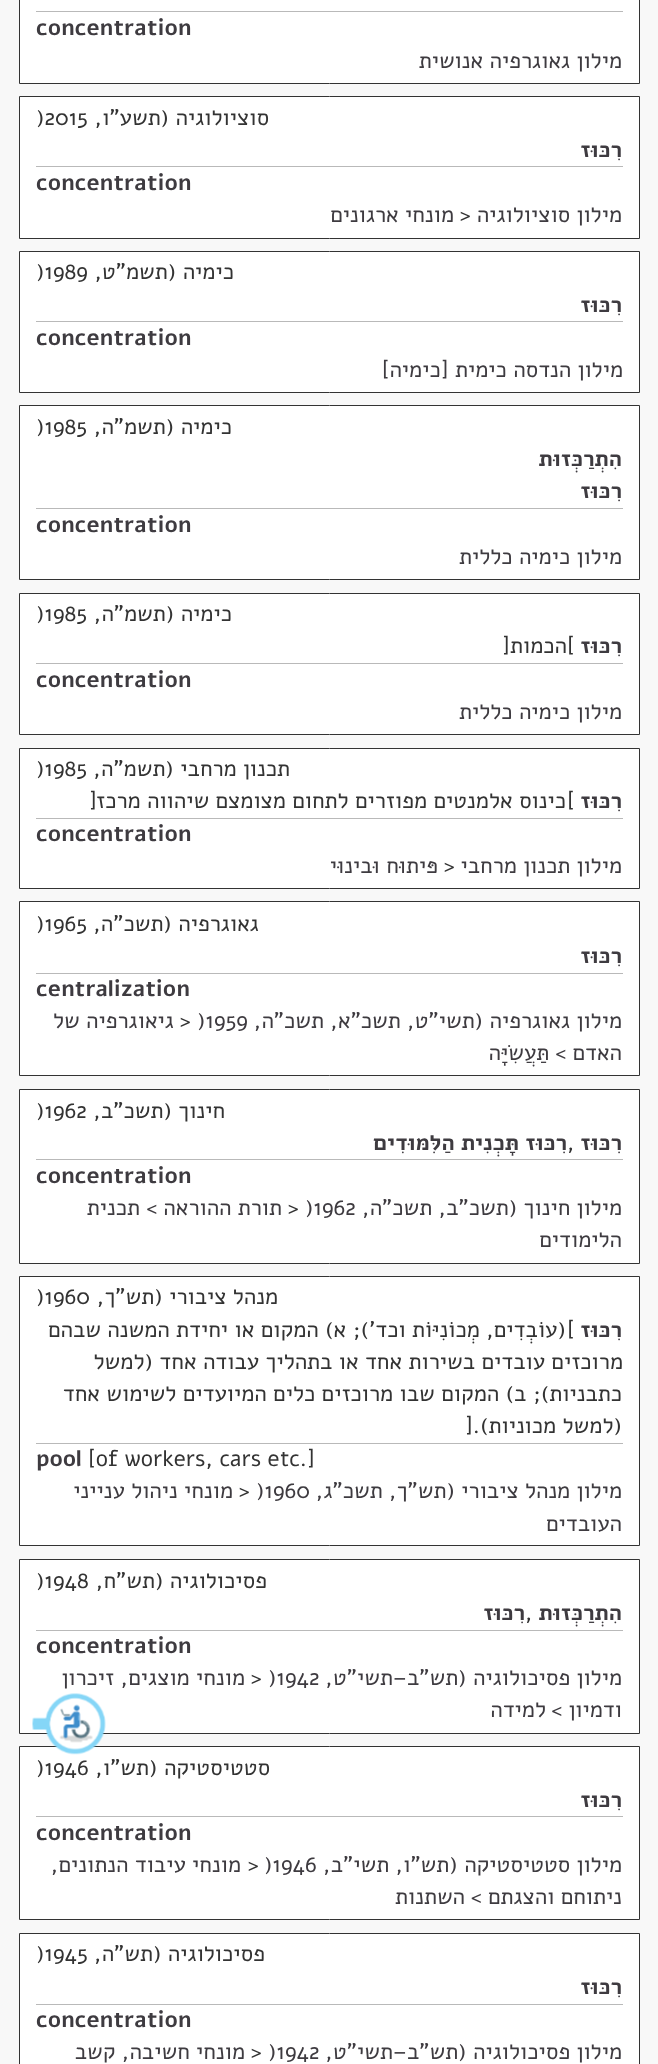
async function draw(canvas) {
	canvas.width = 658;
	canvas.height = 2064;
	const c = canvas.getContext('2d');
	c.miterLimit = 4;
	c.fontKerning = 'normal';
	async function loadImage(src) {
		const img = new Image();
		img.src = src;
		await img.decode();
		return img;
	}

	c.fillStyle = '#f8f8f8';
	c.fillRect(0, 0, 658, 2064);
	c.fillStyle = '#fff';
	c.beginPath();
	c.rect(19.5, -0.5, 620, 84);
	c.fill();
	c.strokeStyle = '#333';
	c.stroke();
	c.fillStyle = '#b9b9b9';
	c.fillRect(36, 11, 587, 1);
	c.font = 'bold 22.5px Alef';
	c.fillStyle = '#3e3b40';
	c.fillText('concentration', 36, 35);
	c.direction = 'rtl';
	c.font = '22.5px Alef';
	c.fillText('מילון גאוגרפיה אנושית', 622, 68);
	c.fillStyle = '#fff';
	c.beginPath();
	c.rect(19.5, 96.5, 620, 142);
	c.fill();
	c.stroke();
	c.fillStyle = '#333';
	c.fillText('סוציולוגיה (תשע"ו,', 269, 125);
	c.direction = 'ltr';
	c.fillText(')2015', 36, 125);
	c.direction = 'rtl';
	c.font = 'bold 22.5px Alef';
	c.fillStyle = '#3e3b40';
	c.fillText('רִכּוּז', 622, 157);
	c.fillStyle = '#b9b9b9';
	c.fillRect(36, 166, 587, 1);
	c.direction = 'ltr';
	c.fillStyle = '#3e3b40';
	c.fillText('concentration', 36, 190);
	c.direction = 'rtl';
	c.font = '22.5px Alef';
	c.fillText('מילון סוציולוגיה', 622, 222);
	c.direction = 'ltr';
	c.fillStyle = '#333';
	c.fillText('>', 460, 222);
	c.direction = 'rtl';
	c.fillStyle = '#3e3b40';
	c.fillText('מונחי ארגונים', 454, 222);
	c.fillStyle = '#fff';
	c.beginPath();
	c.rect(19.5, 251.5, 620, 141);
	c.fill();
	c.stroke();
	c.fillStyle = '#333';
	c.fillText('כימיה (תשמ"ט,', 234, 279);
	c.direction = 'ltr';
	c.fillText(')1989', 36, 279);
	c.direction = 'rtl';
	c.font = 'bold 22.5px Alef';
	c.fillStyle = '#3e3b40';
	c.fillText('רִכּוּז', 622, 312);
	c.fillStyle = '#b9b9b9';
	c.fillRect(36, 321, 587, 1);
	c.direction = 'ltr';
	c.fillStyle = '#3e3b40';
	c.fillText('concentration', 36, 345);
	c.direction = 'rtl';
	c.font = '22.5px Alef';
	c.fillText('מילון הנדסה כימית [כימיה]', 623, 377);
	c.fillStyle = '#fff';
	c.beginPath();
	c.rect(19.5, 405.5, 620, 174);
	c.fill();
	c.stroke();
	c.fillStyle = '#333';
	c.fillText('כימיה (תשמ"ה,', 232, 434);
	c.direction = 'ltr';
	c.fillText(')1985', 36, 434);
	c.direction = 'rtl';
	c.font = 'bold 22.5px Alef';
	c.fillStyle = '#3e3b40';
	c.fillText('הִתְרַכְּזוּת', 622, 466);
	c.fillText('רִכּוּז', 622, 498);
	c.fillStyle = '#b9b9b9';
	c.fillRect(36, 508, 587, 1);
	c.direction = 'ltr';
	c.fillStyle = '#3e3b40';
	c.fillText('concentration', 36, 532);
	c.direction = 'rtl';
	c.font = '22.5px Alef';
	c.fillText('מילון כימיה כללית', 622, 564);
	c.fillStyle = '#fff';
	c.beginPath();
	c.rect(19.5, 593.5, 620, 141);
	c.fill();
	c.stroke();
	c.fillStyle = '#333';
	c.fillText('כימיה (תשמ"ה,', 232, 621);
	c.direction = 'ltr';
	c.fillText(')1985', 36, 621);
	c.direction = 'rtl';
	c.font = 'bold 22.5px Alef';
	c.fillStyle = '#3e3b40';
	c.fillText('רִכּוּז', 622, 653);
	c.direction = 'ltr';
	c.font = '22.5px Alef';
	c.fillStyle = '#333';
	c.fillText('[', 567, 653);
	c.direction = 'rtl';
	c.fillText('הכמות', 567, 653);
	c.direction = 'ltr';
	c.fillText(']', 502, 653);
	c.fillStyle = '#b9b9b9';
	c.fillRect(36, 663, 587, 1);
	c.font = 'bold 22.5px Alef';
	c.fillStyle = '#3e3b40';
	c.fillText('concentration', 36, 687);
	c.direction = 'rtl';
	c.font = '22.5px Alef';
	c.fillText('מילון כימיה כללית', 622, 719);
	c.fillStyle = '#fff';
	c.beginPath();
	c.rect(19.5, 748.5, 620, 140);
	c.fill();
	c.stroke();
	c.fillStyle = '#333';
	c.fillText('תכנון מרחבי (תשמ"ה,', 290, 776);
	c.direction = 'ltr';
	c.fillText(')1985', 36, 776);
	c.direction = 'rtl';
	c.font = 'bold 22.5px Alef';
	c.fillStyle = '#3e3b40';
	c.fillText('רִכּוּז', 622, 808);
	c.direction = 'ltr';
	c.font = '22.5px Alef';
	c.fillStyle = '#333';
	c.fillText('[', 567, 808);
	c.direction = 'rtl';
	c.fillText('כינוס אלמנטים מפוזרים לתחום מצומצם שיהווה מרכז', 566, 808);
	c.direction = 'ltr';
	c.fillText(']', 89, 808);
	c.fillStyle = '#b9b9b9';
	c.fillRect(36, 818, 587, 1);
	c.font = 'bold 22.5px Alef';
	c.fillStyle = '#3e3b40';
	c.fillText('concentration', 36, 841);
	c.direction = 'rtl';
	c.font = '22.5px Alef';
	c.fillText('מילון תכנון מרחבי', 622, 873);
	c.direction = 'ltr';
	c.fillStyle = '#333';
	c.fillText('>', 444, 873);
	c.direction = 'rtl';
	c.fillStyle = '#3e3b40';
	c.fillText('פּיתוּח וּבינוּי', 438, 873);
	c.fillStyle = '#fff';
	c.beginPath();
	c.rect(19.5, 901.5, 620, 174);
	c.fill();
	c.stroke();
	c.fillStyle = '#333';
	c.fillText('גאוגרפיה (תשכ"ה,', 259, 931);
	c.direction = 'ltr';
	c.fillText(')1965', 36, 931);
	c.direction = 'rtl';
	c.font = 'bold 22.5px Alef';
	c.fillStyle = '#3e3b40';
	c.fillText('רִכּוּז', 622, 963);
	c.fillStyle = '#b9b9b9';
	c.fillRect(36, 973, 587, 1);
	c.direction = 'ltr';
	c.fillStyle = '#3e3b40';
	c.fillText('centralization', 36, 996);
	c.direction = 'rtl';
	c.font = '22.5px Alef';
	c.fillText('מילון גאוגרפיה (תשי"ט, תשכ"א, תשכ"ה,', 622, 1028);
	c.direction = 'ltr';
	c.fillText(')1959', 197, 1028);
	c.fillStyle = '#333';
	c.fillText('>', 180, 1028);
	c.direction = 'rtl';
	c.fillStyle = '#3e3b40';
	c.fillText('גיאוגרפיה של', 174, 1028);
	c.fillText('האדם > תַּעֲשִׂיָּה', 622, 1060);
	c.fillStyle = '#fff';
	c.beginPath();
	c.rect(19.5, 1089.5, 620, 174);
	c.fill();
	c.stroke();
	c.fillStyle = '#333';
	c.fillText('חינוך (תשכ"ב,', 225, 1118);
	c.direction = 'ltr';
	c.fillText(')1962', 36, 1118);
	c.direction = 'rtl';
	c.font = 'bold 22.5px Alef';
	c.fillStyle = '#3e3b40';
	c.fillText('רִכּוּז', 622, 1150);
	c.direction = 'ltr';
	c.font = '22.5px Alef';
	c.fillStyle = '#333';
	c.fillText(',', 567, 1150);
	c.direction = 'rtl';
	c.font = 'bold 22.5px Alef';
	c.fillStyle = '#3e3b40';
	c.fillText('רִכּוּז תָּכְנִית הַלִּמּוּדִים', 567, 1150);
	c.fillStyle = '#b9b9b9';
	c.fillRect(36, 1159, 587, 1);
	c.direction = 'ltr';
	c.fillStyle = '#3e3b40';
	c.fillText('concentration', 36, 1183);
	c.direction = 'rtl';
	c.font = '22.5px Alef';
	c.fillText('מילון חינוך (תשכ"ב, תשכ"ה,', 622, 1215);
	c.direction = 'ltr';
	c.fillText(')1962', 305, 1215);
	c.fillStyle = '#333';
	c.fillText('>', 288, 1215);
	c.direction = 'rtl';
	c.fillStyle = '#3e3b40';
	for (const [text, x, y] of [
		['תורת ההוראה >', 282, 1215],
		['תכנית', 140, 1215],
		['הלימודים', 622, 1247],
	]) {
		c.fillText(text, x, y);
	}
	c.fillStyle = '#fff';
	c.beginPath();
	c.rect(19.5, 1276.5, 620, 269);
	c.fill();
	c.stroke();
	c.fillStyle = '#333';
	c.fillText('מנהל ציבורי (תש"ך,', 278, 1304);
	c.direction = 'ltr';
	c.fillText(')1960', 36, 1304);
	c.direction = 'rtl';
	c.font = 'bold 22.5px Alef';
	c.fillStyle = '#3e3b40';
	c.fillText('רִכּוּז', 622, 1337);
	c.direction = 'ltr';
	c.font = '22.5px Alef';
	c.fillStyle = '#333';
	c.fillText('[', 567, 1337);
	c.direction = 'rtl';
	for (const [text, x, y] of [
		['(עוֹבְדִים, מְכוֹנִיּוֹת וכד\'); א) המקום או יחידת המשנה שבהם', 566, 1337],
		['מרוכזים עובדים בשירות אחד או בתהליך עבודה אחד (למשל', 623, 1369],
		['כתבניות); ב) המקום שבו מרוכזים כלים המיועדים לשימוש אחד', 622, 1401],
		['(למשל מכוניות).', 622, 1433],
	]) {
		c.fillText(text, x, y);
	}
	c.direction = 'ltr';
	c.fillText(']', 465, 1433);
	c.fillStyle = '#b9b9b9';
	c.fillRect(36, 1443, 587, 1);
	c.fillStyle = '#333';
	c.fillText('[of workers, cars etc.]', 88, 1466);
	c.font = 'bold 22.5px Alef';
	c.fillStyle = '#3e3b40';
	c.fillText('pool', 36, 1466);
	c.direction = 'rtl';
	c.font = '22.5px Alef';
	c.fillText('מילון מנהל ציבורי (תש"ך, תשכ"ג,', 622, 1498);
	c.direction = 'ltr';
	c.fillText(')1960', 256, 1498);
	c.fillStyle = '#333';
	c.fillText('>', 239, 1498);
	c.direction = 'rtl';
	c.fillStyle = '#3e3b40';
	c.fillText('מונחי ניהול ענייני', 233, 1498);
	c.fillText('העובדים', 622, 1531);
	c.fillStyle = '#fff';
	c.beginPath();
	c.rect(19.5, 1559.5, 620, 174);
	c.fill();
	c.stroke();
	c.fillStyle = '#333';
	c.fillText('פסיכולוגיה (תש"ח,', 267, 1588);
	c.direction = 'ltr';
	c.fillText(')1948', 36, 1588);
	c.direction = 'rtl';
	c.font = 'bold 22.5px Alef';
	c.fillStyle = '#3e3b40';
	c.fillText('הִתְרַכְּזוּת', 622, 1620);
	c.direction = 'ltr';
	c.font = '22.5px Alef';
	c.fillStyle = '#333';
	c.fillText(',', 525, 1620);
	c.direction = 'rtl';
	c.font = 'bold 22.5px Alef';
	c.fillStyle = '#3e3b40';
	c.fillText('רִכּוּז', 525, 1620);
	c.fillStyle = '#b9b9b9';
	c.fillRect(36, 1630, 587, 1);
	c.direction = 'ltr';
	c.fillStyle = '#3e3b40';
	c.fillText('concentration', 36, 1653);
	c.direction = 'rtl';
	c.font = '22.5px Alef';
	c.fillText('מילון פסיכולוגיה (תש"ב–תשי"ט,', 622, 1685);
	c.direction = 'ltr';
	c.fillText(')1942', 268, 1685);
	c.fillStyle = '#333';
	c.fillText('>', 251, 1685);
	c.direction = 'rtl';
	c.fillStyle = '#3e3b40';
	for (const [text, x, y] of [
		['מונחי מוצגים, זיכרון', 245, 1685],
		['ודמיון >', 622, 1717],
		['למידה', 546, 1717],
	]) {
		c.fillText(text, x, y);
	}
	c.fillStyle = '#fff';
	c.beginPath();
	c.rect(19.5, 1746.5, 620, 173);
	c.fill();
	c.stroke();
	c.fillStyle = '#333';
	c.fillText('סטטיסטיקה (תש"ו,', 270, 1775);
	c.direction = 'ltr';
	c.fillText(')1946', 36, 1775);
	c.direction = 'rtl';
	c.font = 'bold 22.5px Alef';
	c.fillStyle = '#3e3b40';
	c.fillText('רִכּוּז', 622, 1807);
	c.fillStyle = '#b9b9b9';
	c.fillRect(36, 1816, 587, 1);
	c.direction = 'ltr';
	c.fillStyle = '#3e3b40';
	c.fillText('concentration', 36, 1840);
	c.direction = 'rtl';
	c.font = '22.5px Alef';
	c.fillText('מילון סטטיסטיקה (תש"ו, תשי"ב,', 622, 1872);
	c.direction = 'ltr';
	c.fillText(')1946', 264, 1872);
	c.fillStyle = '#333';
	c.fillText('>', 248, 1872);
	c.direction = 'rtl';
	c.fillStyle = '#3e3b40';
	for (const [text, x, y] of [
		['מונחי עיבוד הנתונים,', 241, 1872],
		['ניתוחם והצגתם >', 622, 1904],
		['השתנות', 465, 1904],
	]) {
		c.fillText(text, x, y);
	}
	c.fillStyle = '#fff';
	c.beginPath();
	c.rect(19.5, 1933.5, 620, 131);
	c.fill();
	c.stroke();
	c.fillStyle = '#333';
	c.fillText('פסיכולוגיה (תש"ה,', 265, 1961);
	c.direction = 'ltr';
	c.fillText(')1945', 36, 1961);
	c.direction = 'rtl';
	c.font = 'bold 22.5px Alef';
	c.fillStyle = '#3e3b40';
	c.fillText('רִכּוּז', 622, 1994);
	c.fillStyle = '#b9b9b9';
	c.fillRect(36, 2004, 587, 1);
	c.direction = 'ltr';
	c.fillStyle = '#3e3b40';
	c.fillText('concentration', 36, 2027);
	c.direction = 'rtl';
	c.font = '22.5px Alef';
	c.fillText('מילון פסיכולוגיה (תש"ב–תשי"ט,', 622, 2059);
	c.direction = 'ltr';
	c.fillText(')1942', 268, 2059);
	c.fillStyle = '#333';
	c.fillText('>', 251, 2059);
	c.direction = 'rtl';
	c.fillStyle = '#3e3b40';
	c.fillText('מונחי חשיבה, קשב', 245, 2059);
	c.drawImage(await loadImage('img1.png'), 32, 1693, 74, 62);
}

draw(document.querySelector('canvas'));
